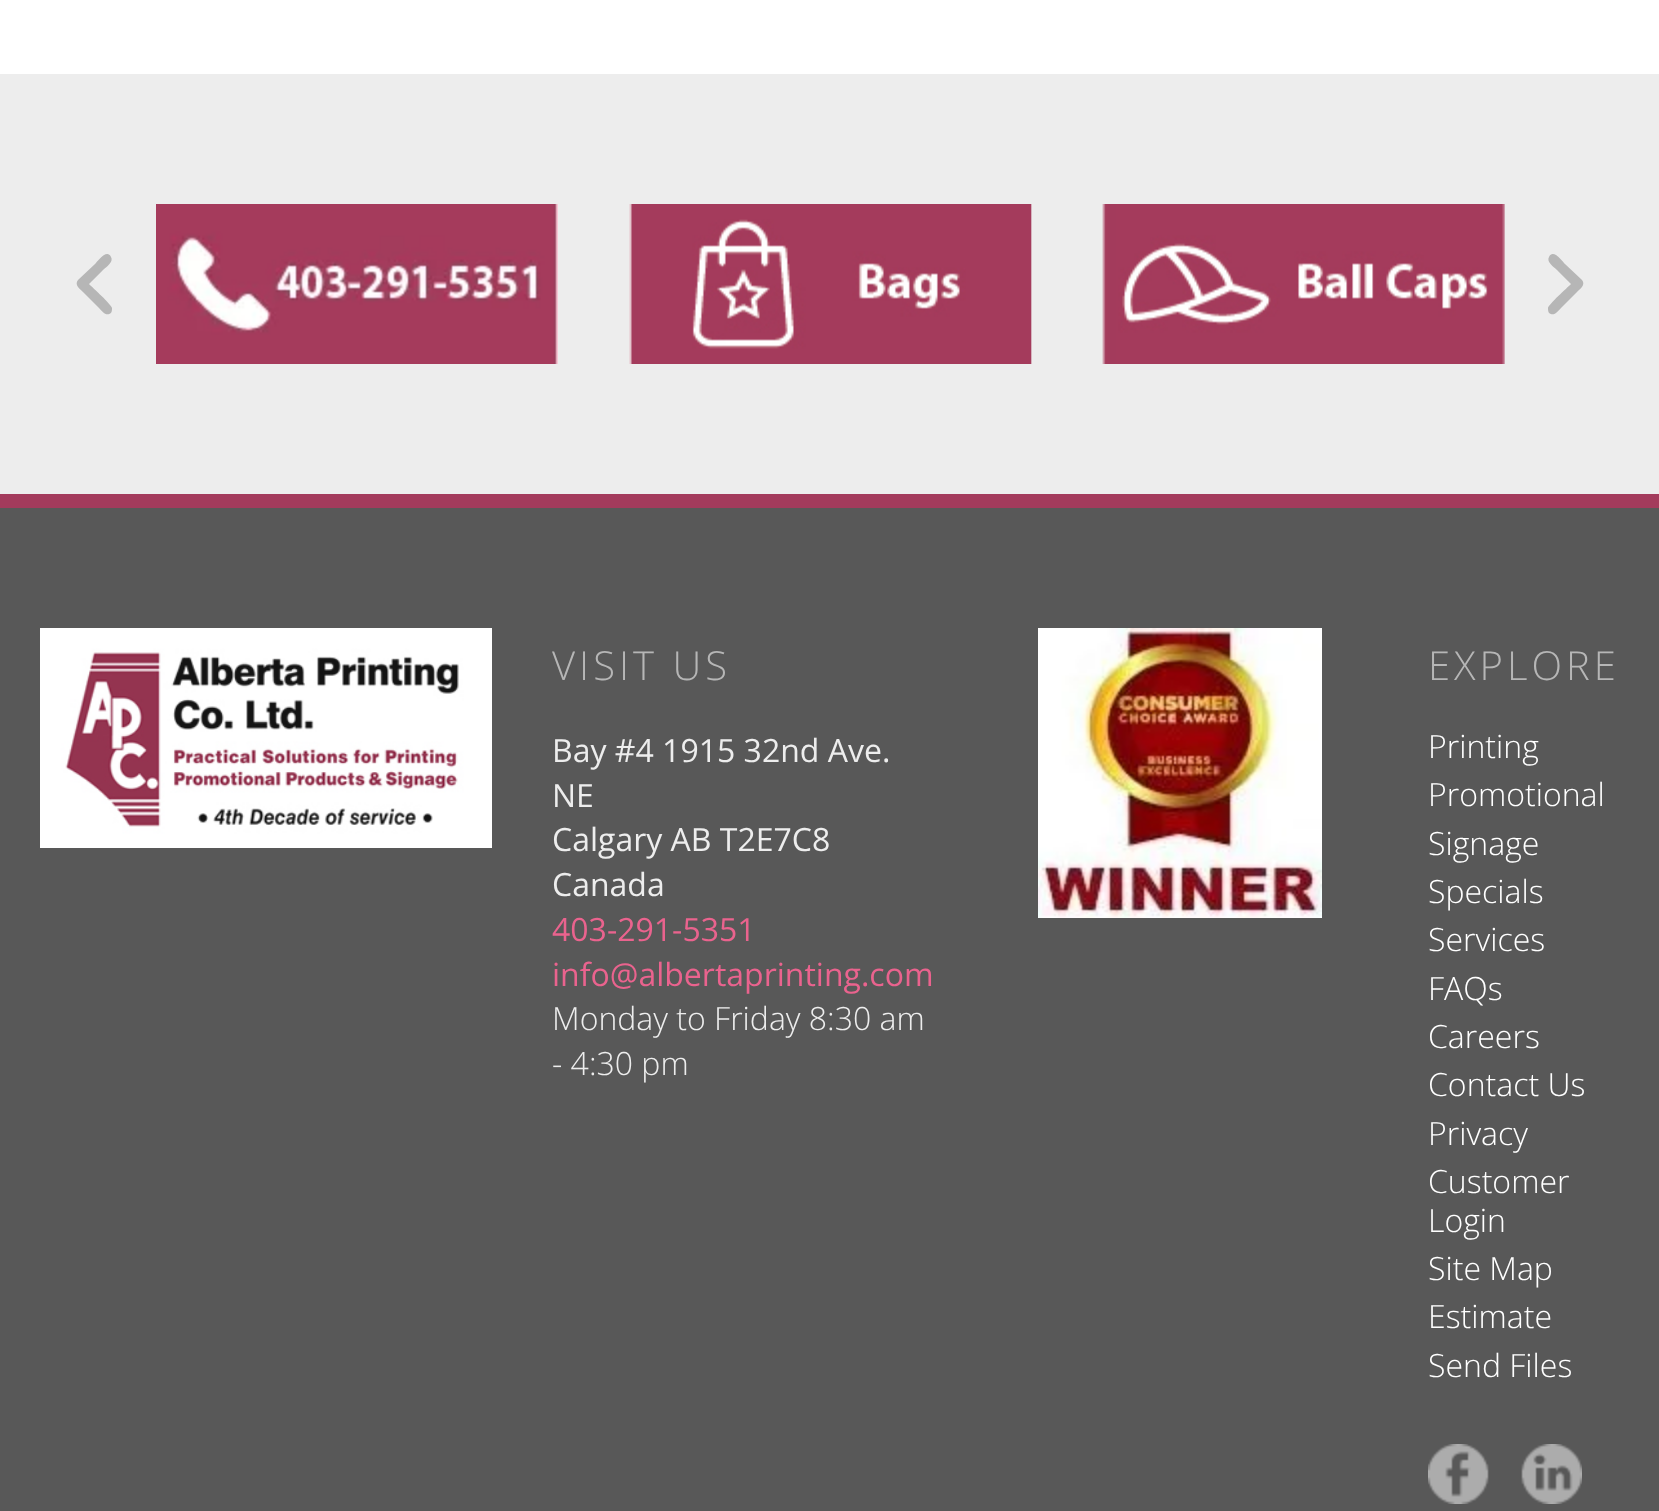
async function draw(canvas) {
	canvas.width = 1659;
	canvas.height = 1511;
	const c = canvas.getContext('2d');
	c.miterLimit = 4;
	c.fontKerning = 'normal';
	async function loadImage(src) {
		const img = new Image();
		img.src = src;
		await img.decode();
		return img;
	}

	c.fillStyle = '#585858';
	c.fillRect(0, 0, 1659, 1511);
	c.fillStyle = '#fff';
	c.fillRect(0, 0, 1659, 74);
	c.fillStyle = '#ededed';
	c.fillRect(0, 74, 1659, 420);
	c.drawImage(await loadImage('img1.png'), 156, 204, 402, 160);
	c.drawImage(await loadImage('img2.png'), 629, 204, 403, 160);
	c.drawImage(await loadImage('img3.png'), 1102, 204, 403, 160);
	c.fillStyle = '#b6b6b6';
	c.beginPath();
	c.moveTo(78, 280);
	c.bezierCurveTo(74, 285, 80, 289, 83, 292);
	c.lineTo(99, 308);
	c.bezierCurveTo(102, 311, 106, 317, 111, 313);
	c.bezierCurveTo(112, 311, 112, 310, 112, 308);
	c.bezierCurveTo(111, 304, 93, 288, 89, 284);
	c.lineTo(103, 270);
	c.bezierCurveTo(106, 267, 114, 262, 111, 257);
	c.bezierCurveTo(107, 248, 97, 262, 95, 264);
	c.closePath();
	c.fill();
	c.beginPath();
	c.moveTo(1582, 280);
	c.bezierCurveTo(1586, 285, 1580, 289, 1577, 292);
	c.lineTo(1561, 308);
	c.bezierCurveTo(1558, 311, 1554, 317, 1549, 313);
	c.bezierCurveTo(1548, 311, 1548, 310, 1548, 308);
	c.bezierCurveTo(1549, 304, 1567, 288, 1571, 284);
	c.lineTo(1557, 270);
	c.bezierCurveTo(1554, 267, 1546, 262, 1549, 257);
	c.bezierCurveTo(1553, 248, 1563, 262, 1565, 264);
	c.closePath();
	c.fill();
	c.fillStyle = '#a33b5c';
	c.fillRect(0, 494, 1659, 14);
	c.drawImage(await loadImage('img4.png'), 40, 628, 452, 220);
	c.letterSpacing = '4px';
	c.font = '300 40px Open Sans';
	c.fillStyle = '#b6b6b6';
	c.fillText('VISIT US', 552, 680);
	c.letterSpacing = '0px';
	c.font = '32px Open Sans';
	c.fillStyle = '#ededed';
	for (const [text, x, y] of [
		['Bay #4 1915 32nd Ave.', 552, 762],
		['NE', 552, 807],
		['Calgary AB T2E7C8', 552, 851],
		['Canada', 552, 896],
	]) {
		c.fillText(text, x, y);
	}
	c.fillStyle = '#ea638e';
	c.fillText('403-291-5351', 552, 941);
	c.fillText('info@albertaprinting.com', 552, 986);
	c.font = '300 32px Open Sans';
	c.fillStyle = '#ededed';
	c.fillText('Monday to Friday 8:30 am', 552, 1030);
	c.fillText('- 4:30 pm', 552, 1075);
	c.drawImage(await loadImage('img5.png'), 1038, 628, 284, 290);
	c.letterSpacing = '4px';
	c.font = '300 40px Open Sans';
	c.fillStyle = '#b6b6b6';
	c.fillText('EXPLORE', 1428, 680);
	c.letterSpacing = '0px';
	c.font = '300 32px Open Sans';
	c.fillStyle = '#fff';
	for (const [text, x, y] of [
		['Printing', 1428, 758],
		['Promotional', 1428, 806],
		['Signage', 1428, 855],
		['Specials', 1428, 903],
		['Services', 1428, 951],
		['FAQs', 1428, 1000],
		['Careers', 1428, 1048],
		['Contact Us', 1428, 1096],
		['Privacy', 1428, 1145],
		['Customer', 1428, 1193],
		['Login', 1428, 1232],
		['Site Map', 1428, 1280],
		['Estimate', 1428, 1328],
		['Send Files', 1428, 1377],
	]) {
		c.fillText(text, x, y);
	}
	c.drawImage(await loadImage('img6.png'), 1428, 1444, 61, 60);
	c.drawImage(await loadImage('img7.png'), 1521, 1444, 61, 60);
}

draw(document.querySelector('canvas'));
